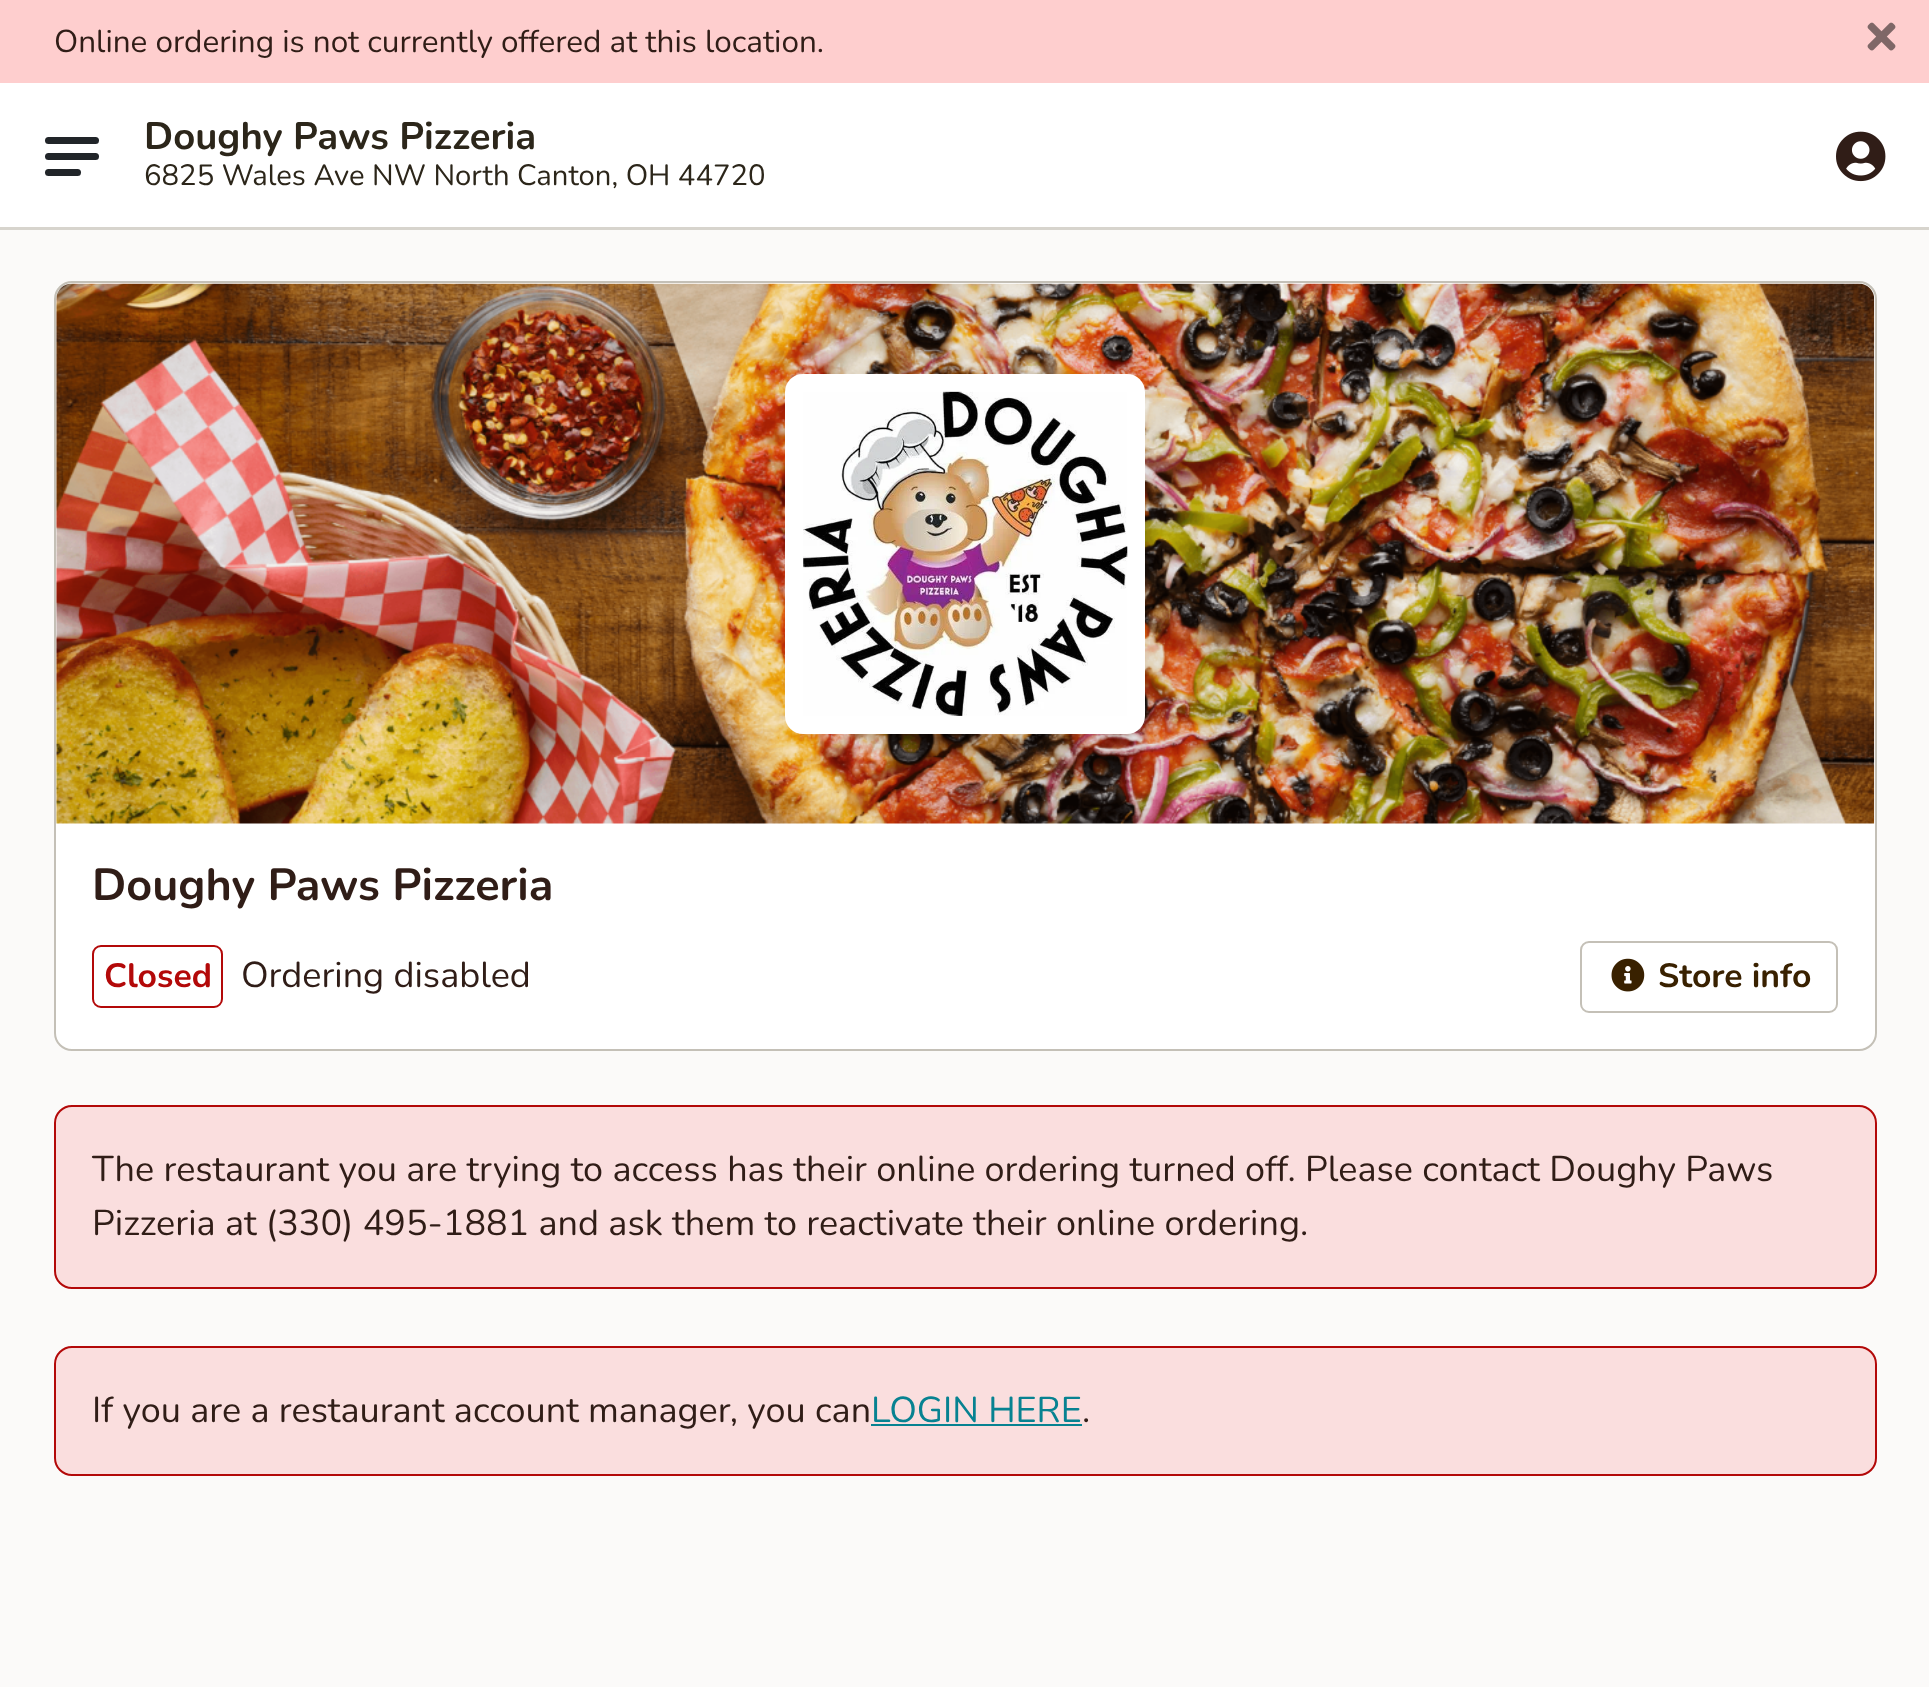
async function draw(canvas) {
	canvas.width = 1929;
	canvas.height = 1687;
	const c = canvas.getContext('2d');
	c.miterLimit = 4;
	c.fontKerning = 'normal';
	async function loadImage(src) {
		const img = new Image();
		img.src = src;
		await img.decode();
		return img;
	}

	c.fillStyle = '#fbfaf9';
	c.fillRect(0, 0, 1929, 1687);
	c.fillStyle = '#fecece';
	c.fillRect(0, 0, 1929, 83);
	c.font = '31.5px Nunito';
	c.fillStyle = '#301d17';
	c.fillText('Online ordering is not currently offered at this location.', 54, 52);
	c.drawImage(await loadImage('img1.png'), 1867, 22, 29, 29);
	c.fillStyle = '#d7d4cd';
	c.beginPath();
	c.moveTo(0, 227);
	c.lineTo(0, 230);
	c.lineTo(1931, 230);
	c.lineTo(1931, 86);
	c.lineTo(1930, 86);
	c.lineTo(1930, 227);
	c.closePath();
	c.fill();
	c.fillStyle = '#fff';
	c.fillRect(0, 83, 1929, 144);
	c.fillStyle = '#212529';
	c.beginPath();
	c.roundRect(45, 137, 54, 7, 3.5);
	c.fill();
	c.beginPath();
	c.roundRect(45, 153, 54, 7, 3.5);
	c.fill();
	c.beginPath();
	c.roundRect(45, 169, 36, 7, 3.5);
	c.fill();
	c.font = 'bold 38.25px Nunito';
	c.fillStyle = '#2c261a';
	c.fillText('Doughy Paws Pizzeria', 144, 149);
	c.font = '29.25px Nunito';
	c.fillText('6825 Wales Ave NW North Canton, OH 44720', 144, 185);
	c.drawImage(await loadImage('img2.png'), 1836, 131, 50, 51);
	c.fillStyle = '#fff';
	c.beginPath();
	c.roundRect(55, 282, 1821, 768, 17);
	c.fill();
	c.strokeStyle = '#c4c0b7';
	c.lineWidth = 2;
	c.stroke();
	c.drawImage(await loadImage('img3.png'), 56, 283, 1819, 541);
	c.beginPath();
	c.roundRect(785, 374, 360, 360, 18);
	c.fill();
	c.drawImage(await loadImage('img4.png'), 803, 391, 325, 325);
	c.font = 'bold 45px Nunito';
	c.fillStyle = '#301d17';
	c.fillText('Doughy Paws Pizzeria', 92, 900);
	c.beginPath();
	c.roundRect(93, 946, 129, 61, 8);
	c.strokeStyle = '#b30909';
	c.stroke();
	c.font = 'bold 33.75px Nunito';
	c.fillStyle = '#b30909';
	c.fillText('Closed', 104, 987);
	c.font = '36px Nunito';
	c.fillStyle = '#301d17';
	c.fillText('Ordering disabled', 241, 987);
	c.beginPath();
	c.roundRect(1581, 942, 256, 70, 8);
	c.strokeStyle = '#c4c0b7';
	c.stroke();
	c.drawImage(await loadImage('img5.png'), 1611, 958, 34, 34);
	c.font = 'bold 33.75px Nunito';
	c.fillStyle = '#392100';
	c.fillText('Store info', 1658, 987);
	c.fillStyle = '#fadede';
	c.beginPath();
	c.roundRect(55, 1106, 1821, 182, 17);
	c.fill();
	c.strokeStyle = '#b30909';
	c.stroke();
	c.font = '36px Nunito';
	c.fillStyle = '#301d17';
	c.fillText('The restaurant you are trying to access has their online ordering turned off. Please contact Doughy Paws', 92, 1181);
	c.fillText('Pizzeria at (330) 495-1881 and ask them to reactivate their online ordering.', 92, 1235);
	c.fillStyle = '#fadede';
	c.beginPath();
	c.roundRect(55, 1347, 1821, 128, 17);
	c.fill();
	c.stroke();
	c.fillStyle = '#301d17';
	c.fillText('If you are a restaurant account manager, you can', 92, 1422);
	c.fillStyle = '#078291';
	c.fillText('LOGIN HERE', 871, 1422);
	c.fillRect(871, 1424, 211, 2);
	c.fillStyle = '#301d17';
	c.fillText('.', 1082, 1422);
}

draw(document.querySelector('canvas'));
